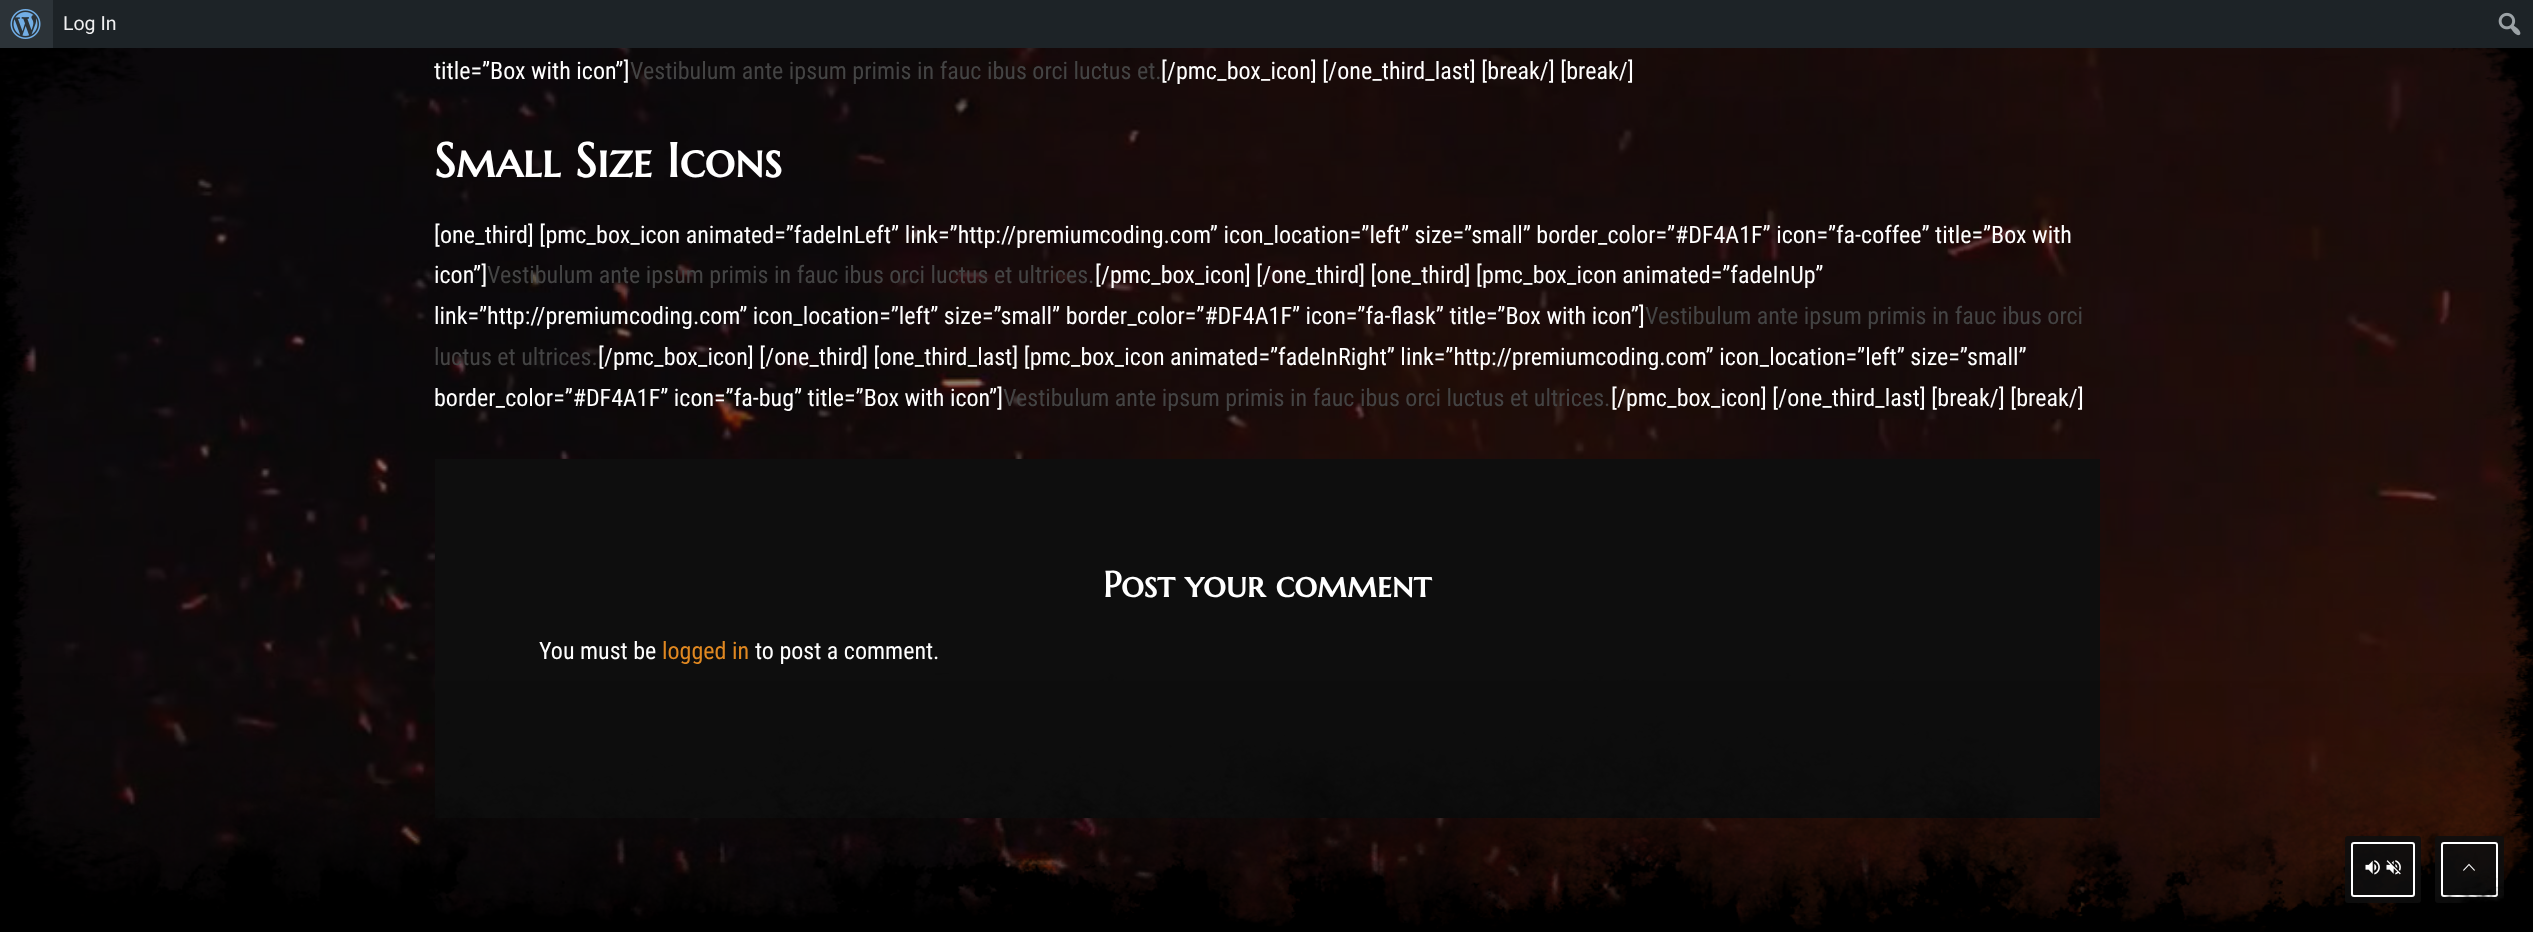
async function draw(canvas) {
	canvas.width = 2533;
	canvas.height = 932;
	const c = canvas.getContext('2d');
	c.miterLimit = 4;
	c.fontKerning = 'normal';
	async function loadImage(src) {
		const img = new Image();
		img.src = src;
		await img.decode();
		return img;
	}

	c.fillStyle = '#0e0e0e';
	c.fillRect(0, 0, 2533, 932);
	c.fillStyle = '#1d2327';
	c.fillRect(53, 0, 2480, 48);
	c.fillStyle = '#2c3338';
	c.fillRect(0, 0, 53, 48);
	c.drawImage(await loadImage('img1.png'), 10, 9, 31, 30);
	c.font = '19.5px Roboto';
	c.fillStyle = '#f0f0f1';
	c.fillText('Log In', 63, 30);
	c.drawImage(await loadImage('img2.png'), 2498, 12, 23, 24);
	c.drawImage(await loadImage('img3.png'), 0, 48, 2533, 884);
	c.font = '24px Roboto Condensed';
	c.fillStyle = '#fff';
	c.fillText('title=”Box with icon”]', 434, 79);
	c.fillStyle = '#444';
	c.fillText('Vestibulum ante ipsum primis in fauc ibus orci luctus et.', 630, 79);
	c.fillStyle = '#fff';
	c.fillText('[/pmc_box_icon] [/one_third_last] [break/] [break/]', 1161, 79);
	c.drawImage(await loadImage('img4.png'), 0, 48, 2511, 84);
	c.fillStyle = '#0e0e0e';
	c.fillRect(435, 459, 1665, 359);
	c.drawImage(await loadImage('img8.png'), 0, 673, 2533, 259);
	c.fillStyle = '#0e0e0ee6';
	c.beginPath();
	c.roundRect(2435, 836, 69, 67, 3);
	c.fill();
	c.drawImage(await loadImage('img11.png'), 2463, 863, 12, 8);
	c.beginPath();
	c.roundRect(2442, 843, 55, 53, 2);
	c.strokeStyle = '#fff';
	c.lineWidth = 2;
	c.stroke();
	c.drawImage(await loadImage('img6.png'), 2442, 48, 91, 845);
	c.beginPath();
	c.roundRect(2345, 836, 76, 67, 3);
	c.fill();
	c.drawImage(await loadImage('img9.png'), 2365, 860, 15, 15);
	c.drawImage(await loadImage('img10.png'), 2386, 860, 15, 15);
	c.beginPath();
	c.roundRect(2352, 843, 62, 53, 2);
	c.stroke();
	c.drawImage(await loadImage('img7.png'), 0, 800, 2504, 132);
	c.drawImage(await loadImage('img5.png'), 0, 75, 37, 767);
	c.font = 'bold 48px Marcellus SC';
	c.fillStyle = '#fff';
	c.fillText('Small Size Icons', 434, 177);
	c.font = '24px Roboto Condensed';
	c.fillText('[one_third] [pmc_box_icon animated=”fadeInLeft” link=”http://premiumcoding.com” icon_location=”left” size=”small” border_color=”#DF4A1F” icon=”fa-coffee” title=”Box with', 434, 243);
	c.fillText('icon”]', 434, 283);
	c.fillStyle = '#444';
	c.fillText('Vestibulum ante ipsum primis in fauc ibus orci luctus et ultrices.', 487, 283);
	c.fillStyle = '#fff';
	c.fillText('[/pmc_box_icon] [/one_third] [one_third] [pmc_box_icon animated=”fadeInUp”', 1095, 283);
	c.fillText('link=”http://premiumcoding.com” icon_location=”left” size=”small” border_color=”#DF4A1F” icon=”fa-flask” title=”Box with icon”]', 434, 324);
	c.fillStyle = '#444';
	c.fillText('Vestibulum ante ipsum primis in fauc ibus orci', 1645, 324);
	c.fillText('luctus et ultrices.', 434, 365);
	c.fillStyle = '#fff';
	c.fillText('[/pmc_box_icon] [/one_third] [one_third_last] [pmc_box_icon animated=”fadeInRight” link=”http://premiumcoding.com” icon_location=”left” size=”small”', 598, 365);
	c.fillText('border_color=”#DF4A1F” icon=”fa-bug” title=”Box with icon”]', 434, 406);
	c.fillStyle = '#444';
	c.fillText('Vestibulum ante ipsum primis in fauc ibus orci luctus et ultrices.', 1003, 406);
	c.fillStyle = '#fff';
	c.fillText('[/pmc_box_icon] [/one_third_last] [break/] [break/]', 1611, 406);
	c.font = 'bold 36px Marcellus SC';
	c.fillText('Post your comment', 1103, 597);
	c.font = '24px Roboto Condensed';
	c.fillText('You must be', 539, 659);
	c.fillStyle = '#e08821';
	c.fillText('logged in', 662, 659);
	c.fillStyle = '#fff';
	c.fillText('to post a comment.', 755, 659);
}

draw(document.querySelector('canvas'));
